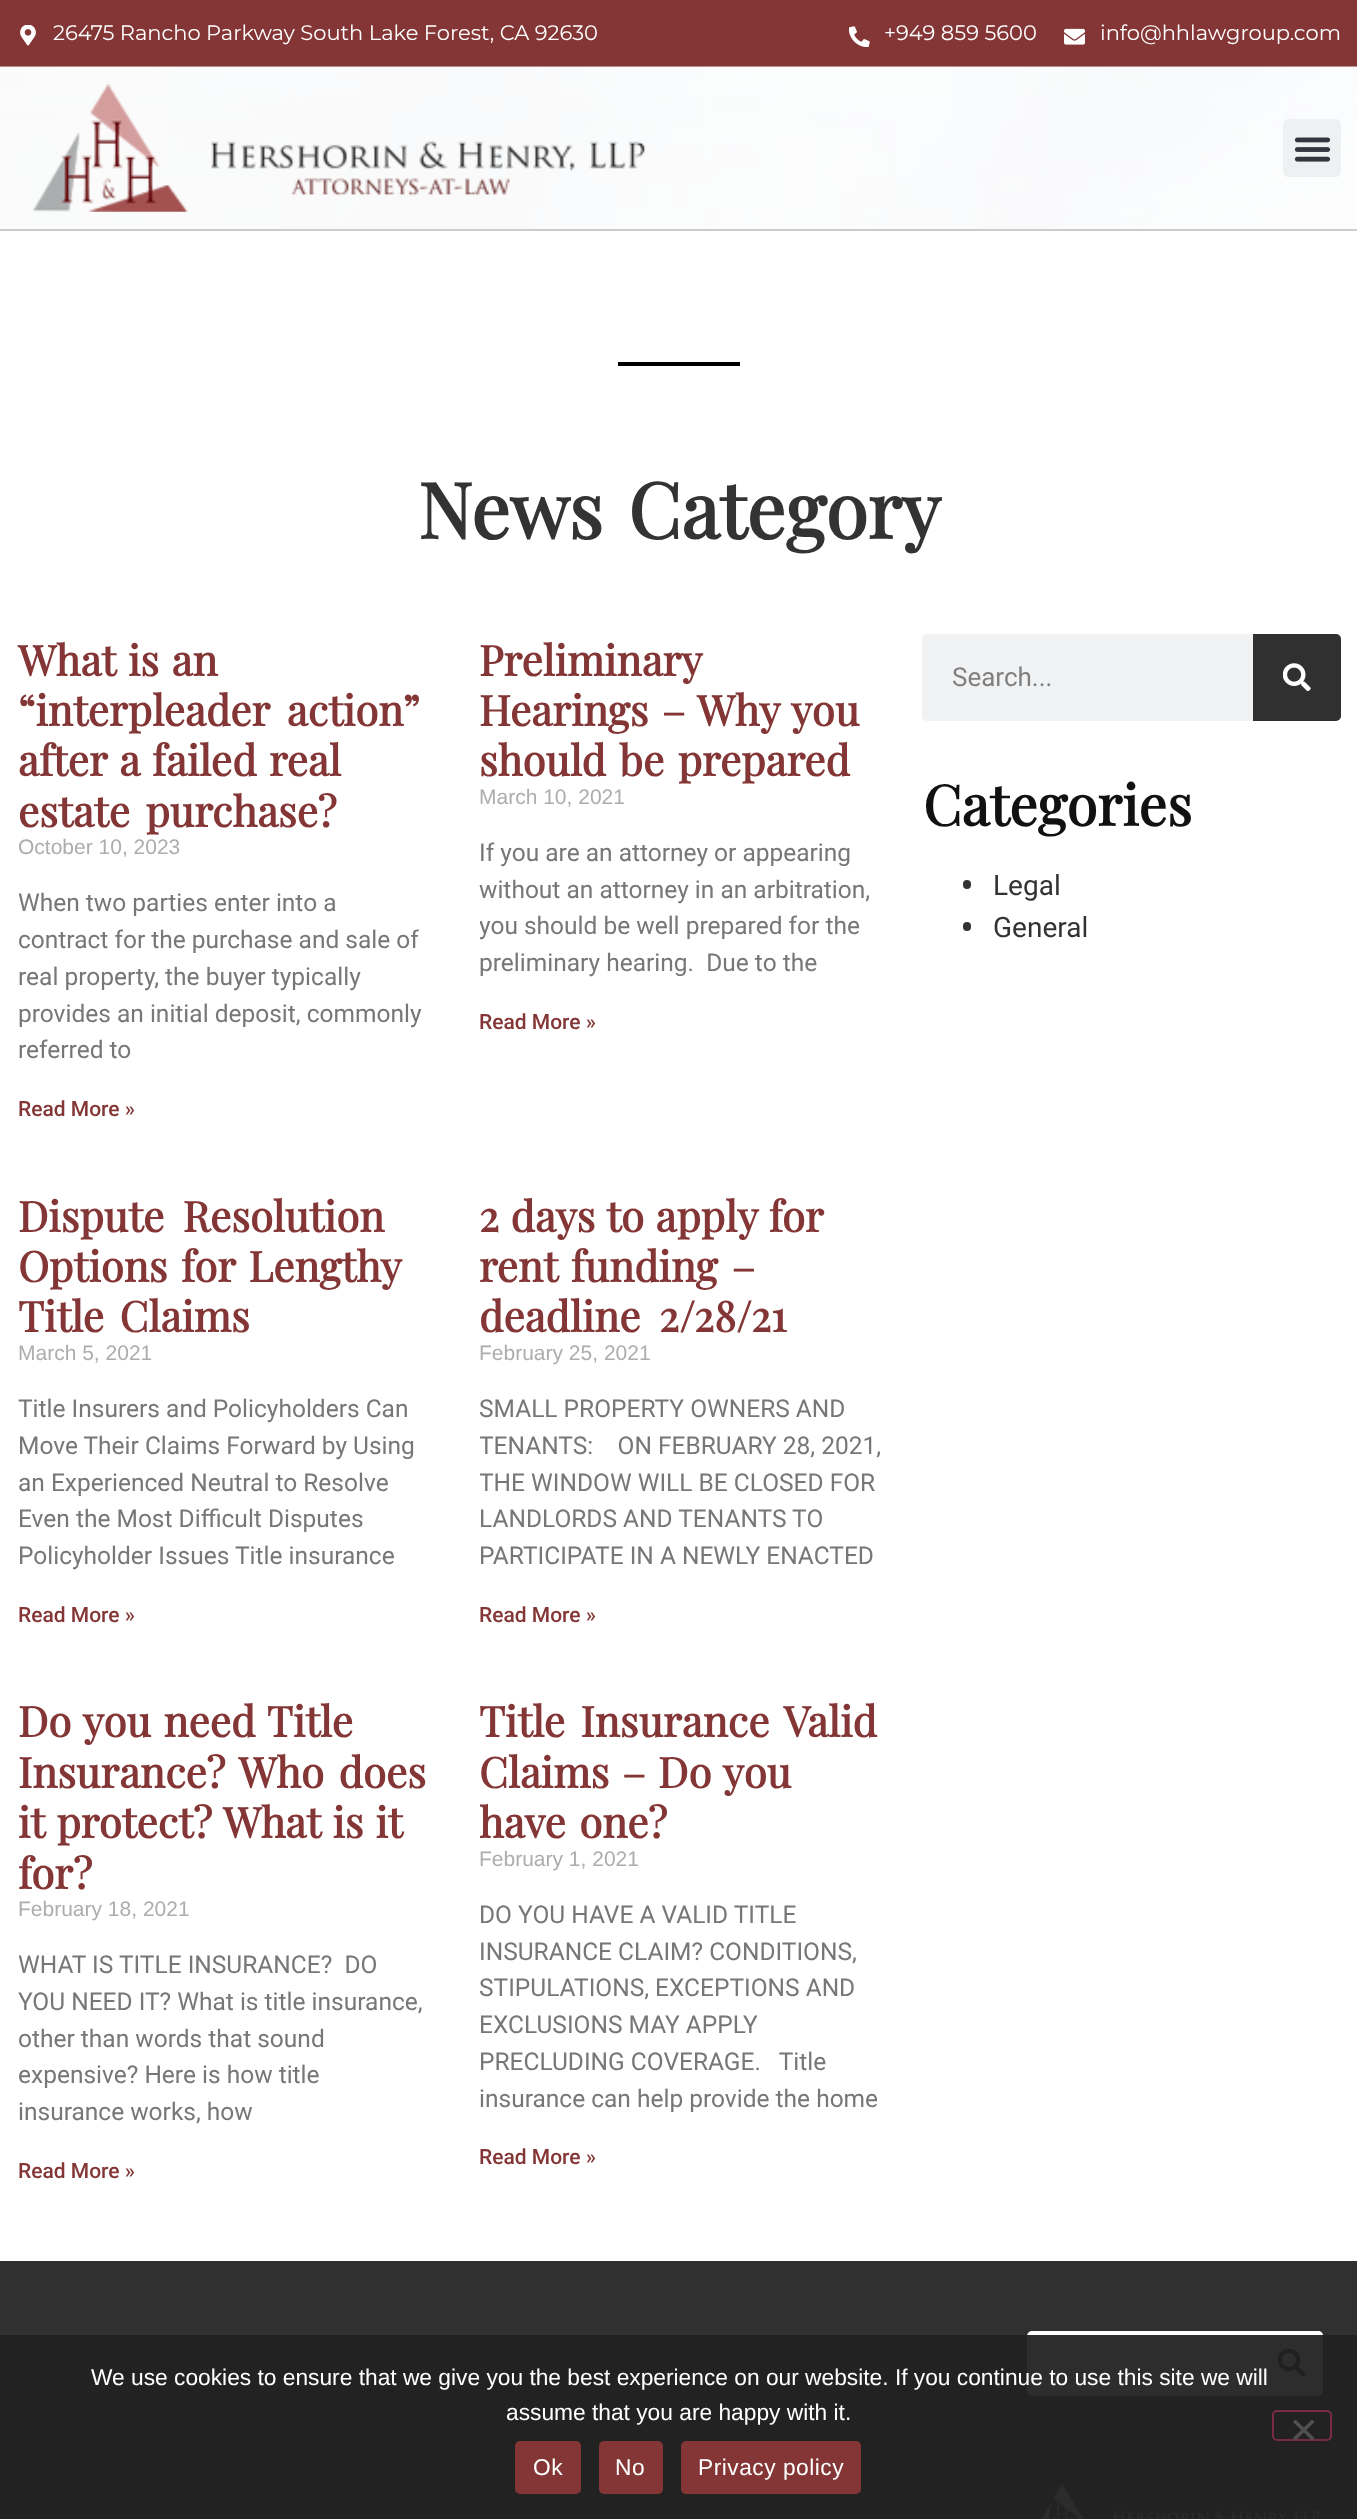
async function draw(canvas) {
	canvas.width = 1357;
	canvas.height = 2519;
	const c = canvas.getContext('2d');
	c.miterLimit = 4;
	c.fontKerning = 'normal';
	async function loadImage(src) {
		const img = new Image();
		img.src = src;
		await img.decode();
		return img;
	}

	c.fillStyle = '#fff';
	c.fillRect(0, 0, 1357, 2519);
	c.fillStyle = '#833635';
	c.fillRect(0, 0, 1357, 67);
	c.drawImage(await loadImage('img1.png'), 20, 25, 16, 21);
	c.font = '21px Montserrat';
	c.fillStyle = '#fff';
	c.fillText('26475 Rancho Parkway South Lake Forest, CA 92630', 53, 40);
	c.drawImage(await loadImage('img2.png'), 849, 26, 21, 21);
	c.fillText('+949 859 5600', 884, 40);
	c.drawImage(await loadImage('img3.png'), 1064, 28, 21, 17);
	c.fillText('info@hhlawgroup.com', 1100, 40);
	c.drawImage(await loadImage('img4.png'), 0, 66, 1357, 163);
	c.fillStyle = '#ccc';
	c.fillRect(0, 229, 1357, 2);
	c.drawImage(await loadImage('img5.png'), 33, 84, 613, 128);
	c.fillStyle = '#eff0f1';
	c.beginPath();
	c.roundRect(1283, 119, 58, 58, 5);
	c.fill();
	c.drawImage(await loadImage('img6.png'), 1294, 137, 37, 25);
	c.fillStyle = '#000';
	c.fillRect(618, 362, 122, 4);
	c.wordSpacing = '6px';
	c.font = 'bold 77px Playfair Display';
	c.fillStyle = '#333';
	c.fillText('News Category', 418, 539);
	c.wordSpacing = '2px';
	c.font = 'bold 42px Playfair Display';
	c.fillStyle = '#833635';
	c.fillText('What is an', 18, 676);
	c.wordSpacing = '7px';
	c.fillText('“interpleader action”', 18, 726);
	c.wordSpacing = '2px';
	c.fillText('after a failed real', 18, 776);
	c.wordSpacing = '5px';
	c.fillText('estate purchase?', 18, 827);
	c.wordSpacing = '0px';
	c.font = '21px Liberation Sans';
	c.fillStyle = '#adadad';
	c.fillText('October 10, 2023', 18, 854);
	c.font = '24.5px Roboto';
	c.fillStyle = '#777';
	for (const [text, x, y] of [
		['When two parties enter into a', 18, 911],
		['contract for the purchase and sale of', 18, 948],
		['real property, the buyer typically', 18, 985],
		['provides an initial deposit, commonly', 18, 1022],
		['referred to', 18, 1058],
	]) {
		c.fillText(text, x, y);
	}
	c.font = '500 21px Roboto';
	c.fillStyle = '#833635';
	c.fillText('Read More »', 18, 1116);
	c.font = 'bold 42px Playfair Display';
	c.fillText('Preliminary', 479, 676);
	c.wordSpacing = '2.5px';
	c.fillText('Hearings – Why you', 479, 726);
	c.wordSpacing = '3px';
	c.fillText('should be prepared', 479, 776);
	c.wordSpacing = '0px';
	c.font = '21px Liberation Sans';
	c.fillStyle = '#adadad';
	c.fillText('March 10, 2021', 479, 804);
	c.font = '24.5px Roboto';
	c.fillStyle = '#777';
	c.fillText('If you are an attorney or appearing', 479, 861);
	c.fillText('without an attorney in an arbitration,', 479, 898);
	c.save();
	c.beginPath();
	c.rect(480, 634, 407, 495);
	c.clip();
	c.fillText('you should be well prepared for the', 479, 934);
	c.restore();
	c.fillText('preliminary hearing.  Due to the', 479, 971);
	c.font = '500 21px Roboto';
	c.fillStyle = '#833635';
	c.fillText('Read More »', 479, 1029);
	c.wordSpacing = '8px';
	c.font = 'bold 42px Playfair Display';
	c.fillText('Dispute Resolution', 18, 1232);
	c.wordSpacing = '3px';
	c.fillText('Options for Lengthy', 18, 1282);
	c.wordSpacing = '5px';
	c.fillText('Title Claims', 18, 1332);
	c.wordSpacing = '0px';
	c.font = '21px Liberation Sans';
	c.fillStyle = '#adadad';
	c.fillText('March 5, 2021', 18, 1360);
	c.font = '24.5px Roboto';
	c.fillStyle = '#777';
	for (const [text, x, y] of [
		['Title Insurers and Policyholders Can', 18, 1417],
		['Move Their Claims Forward by Using', 18, 1454],
		['an Experienced Neutral to Resolve', 18, 1491],
		['Even the Most Difficult Disputes', 18, 1527],
		['Policyholder Issues Title insurance', 18, 1564],
	]) {
		c.fillText(text, x, y);
	}
	c.font = '500 21px Roboto';
	c.fillStyle = '#833635';
	c.fillText('Read More »', 18, 1622);
	c.wordSpacing = '1px';
	c.font = 'bold 42px Playfair Display';
	c.fillText('2 days to apply for', 479, 1232);
	c.wordSpacing = '3px';
	c.fillText('rent funding –', 479, 1282);
	c.wordSpacing = '8px';
	c.fillText('deadline 2/28/21', 479, 1332);
	c.wordSpacing = '0px';
	c.font = '21px Liberation Sans';
	c.fillStyle = '#adadad';
	c.fillText('February 25, 2021', 479, 1360);
	c.font = '24.5px Roboto';
	c.fillStyle = '#777';
	c.fillText('SMALL PROPERTY OWNERS AND', 479, 1417);
	c.save();
	c.beginPath();
	c.rect(480, 1190, 407, 445);
	c.clip();
	c.fillText('TENANTS:    ON FEBRUARY 28, 2021,', 479, 1454);
	c.fillText('THE WINDOW WILL BE CLOSED FOR', 479, 1491);
	c.restore();
	c.fillText('LANDLORDS AND TENANTS TO', 479, 1527);
	c.fillText('PARTICIPATE IN A NEWLY ENACTED', 479, 1564);
	c.font = '500 21px Roboto';
	c.fillStyle = '#833635';
	c.fillText('Read More »', 479, 1622);
	c.wordSpacing = '2px';
	c.font = 'bold 42px Playfair Display';
	c.fillText('Do you need Title', 18, 1737);
	c.wordSpacing = '4px';
	c.fillText('Insurance? Who does', 18, 1788);
	c.wordSpacing = '1.5px';
	c.fillText('it protect? What is it', 18, 1838);
	c.wordSpacing = '0px';
	c.fillText('for?', 18, 1889);
	c.font = '21px Liberation Sans';
	c.fillStyle = '#adadad';
	c.fillText('February 18, 2021', 18, 1916);
	c.font = '24.5px Roboto';
	c.fillStyle = '#777';
	for (const [text, x, y] of [
		['WHAT IS TITLE INSURANCE?  DO', 18, 1973],
		['YOU NEED IT? What is title insurance,', 18, 2010],
		['other than words that sound', 18, 2047],
		['expensive? Here is how title', 18, 2083],
		['insurance works, how', 18, 2120],
	]) {
		c.fillText(text, x, y);
	}
	c.font = '500 21px Roboto';
	c.fillStyle = '#833635';
	c.fillText('Read More »', 18, 2178);
	c.wordSpacing = '5px';
	c.font = 'bold 42px Playfair Display';
	c.fillText('Title Insurance Valid', 479, 1737);
	c.wordSpacing = '2px';
	c.fillText('Claims – Do you', 479, 1788);
	c.save();
	c.beginPath();
	c.rect(480, 1696, 407, 495);
	c.clip();
	c.wordSpacing = '3px';
	c.fillText('have one?', 479, 1838);
	c.restore();
	c.wordSpacing = '0px';
	c.font = '21px Liberation Sans';
	c.fillStyle = '#adadad';
	c.fillText('February 1, 2021', 479, 1866);
	c.font = '24.5px Roboto';
	c.fillStyle = '#777';
	for (const [text, x, y] of [
		['DO YOU HAVE A VALID TITLE', 479, 1923],
		['INSURANCE CLAIM? CONDITIONS,', 479, 1960],
		['STIPULATIONS, EXCEPTIONS AND', 479, 1996],
		['EXCLUSIONS MAY APPLY', 479, 2033],
		['PRECLUDING COVERAGE.   Title', 479, 2070],
		['insurance can help provide the home', 479, 2107],
	]) {
		c.fillText(text, x, y);
	}
	c.font = '500 21px Roboto';
	c.fillStyle = '#833635';
	c.fillText('Read More »', 479, 2164);
	c.fillStyle = '#f1f2f3';
	c.beginPath();
	c.roundRect(922, 634, 419, 87, 5);
	c.fill();
	c.font = '26px Roboto';
	c.fillStyle = '#7f7f80';
	c.fillText('Search...', 952, 686);
	c.fillStyle = '#303030';
	c.beginPath();
	c.roundRect(1253, 634, 88, 87, [0, 5, 5, 0]);
	c.fill();
	c.drawImage(await loadImage('img7.png'), 1283, 663, 28, 28);
	c.font = 'bold 56px Playfair Display';
	c.fillStyle = '#111';
	c.fillText('Categories', 923, 826);
	c.fillStyle = '#333';
	c.beginPath();
	c.roundRect(963, 880, 8, 9, 4);
	c.fill();
	c.font = '28px Roboto';
	c.fillText('Legal', 993, 895);
	c.beginPath();
	c.roundRect(963, 922, 8, 9, 4);
	c.fill();
	c.fillText('General', 993, 937);
	c.fillStyle = '#303030';
	c.fillRect(0, 2261, 1357, 258);
	c.fillStyle = '#fff';
	c.beginPath();
	c.roundRect(1027, 2331, 296, 65, 5);
	c.fill();
	c.beginPath();
	c.roundRect(1258, 2331, 65, 65, [0, 5, 5, 0]);
	c.fill();
	c.drawImage(await loadImage('img8.png'), 1278, 2349, 28, 28);
	c.drawImage(await loadImage('img9.png'), 1041, 2483, 280, 36);
	c.fillStyle = '#222222f2';
	c.fillRect(0, 2335, 1357, 184);
	c.font = '22.75px Liberation Sans';
	c.fillStyle = '#fff';
	c.fillText('We use cookies to ensure that we give you the best experience on our website. If you continue to use this site we will', 91, 2385);
	c.fillText('assume that you are happy with it.', 506, 2420);
	c.beginPath();
	c.roundRect(1273, 2411, 58, 29, 4);
	c.strokeStyle = '#772b44';
	c.lineWidth = 2;
	c.stroke();
	c.fillStyle = '#515151';
	c.beginPath();
	c.moveTo(1312, 2419.5);
	c.lineTo(1314.5, 2422);
	c.lineTo(1295.5, 2440.5);
	c.lineTo(1293, 2438);
	c.closePath();
	c.fill();
	c.beginPath();
	c.moveTo(1293, 2422);
	c.lineTo(1295.5, 2419.5);
	c.lineTo(1314.5, 2438);
	c.lineTo(1312, 2440.5);
	c.closePath();
	c.fill();
	c.fillStyle = '#833635';
	c.beginPath();
	c.roundRect(515, 2441, 66, 53, 5);
	c.fill();
	c.letterSpacing = '0.5px';
	c.fillStyle = '#fff';
	c.fillText('Ok', 533, 2475);
	c.fillStyle = '#833635';
	c.beginPath();
	c.roundRect(599, 2441, 64, 53, 5);
	c.fill();
	c.fillStyle = '#fff';
	c.fillText('No', 615, 2475);
	c.fillStyle = '#833635';
	c.beginPath();
	c.roundRect(681, 2441, 180, 53, 5);
	c.fill();
	c.fillStyle = '#fff';
	c.fillText('Privacy policy', 698, 2475);
}

draw(document.querySelector('canvas'));
